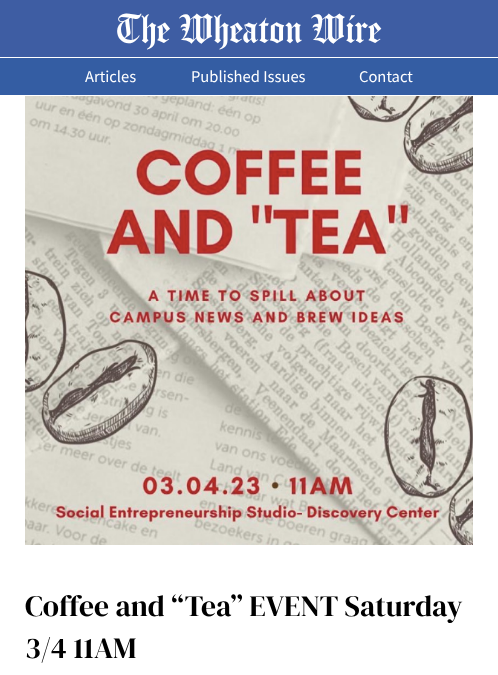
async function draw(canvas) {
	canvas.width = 498;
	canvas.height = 675;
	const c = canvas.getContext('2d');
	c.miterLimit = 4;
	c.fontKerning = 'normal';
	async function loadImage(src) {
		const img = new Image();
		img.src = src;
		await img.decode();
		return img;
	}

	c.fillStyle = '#fff';
	c.fillRect(0, 0, 498, 675);
	c.fillStyle = '#3e5da3';
	c.fillRect(0, 0, 498, 57);
	c.font = '41px "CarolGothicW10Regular"';
	c.fillStyle = '#fff';
	c.fillText('The Wheaton Wire', 116, 43);
	c.fillStyle = '#345da3';
	c.fillRect(0, 58, 498, 37);
	c.font = '16.5px Source Sans Pro';
	c.fillStyle = '#fff';
	for (const [text, x, y] of [
		['Articles', 85, 82],
		['Published Issues', 191, 82],
		['Contact', 359, 82],
	]) {
		c.fillText(text, x, y);
	}
	c.drawImage(await loadImage('img1.png'), 25, 96, 448, 449);
	c.font = '29.6px DM Serif Display';
	c.fillStyle = '#000';
	c.fillText('Coffee and “Tea” EVENT Saturday', 25, 616);
	c.fillText('3/4 11AM', 25, 658);
}

draw(document.querySelector('canvas'));
